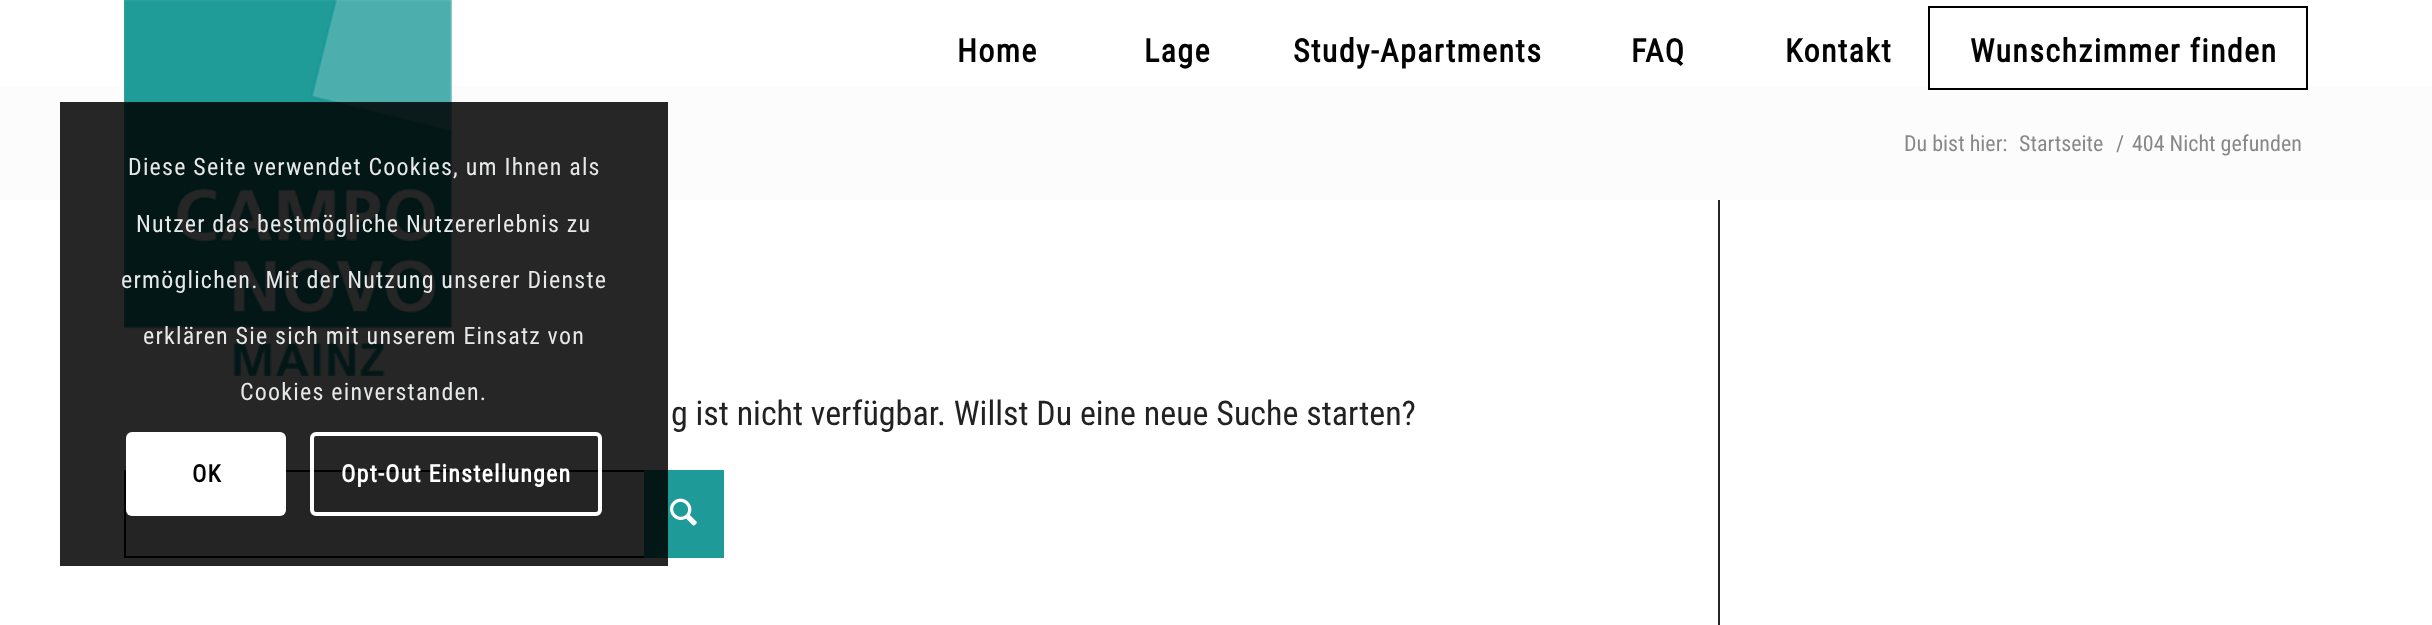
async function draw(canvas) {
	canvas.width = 2432;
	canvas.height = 625;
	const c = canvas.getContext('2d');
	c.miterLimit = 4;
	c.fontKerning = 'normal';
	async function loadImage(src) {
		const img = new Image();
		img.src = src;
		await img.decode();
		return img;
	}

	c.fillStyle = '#fff';
	c.fillRect(0, 0, 2432, 625);
	c.fillStyle = '#fcfcfc';
	c.fillRect(0, 86, 2432, 114);
	c.drawImage(await loadImage('img1.png'), 124, 0, 328, 376);
	c.fillStyle = '#eee';
	c.fillRect(126, 472, 518, 84);
	c.strokeStyle = '#080808';
	c.lineWidth = 2;
	c.strokeRect(125, 471, 598, 86);
	c.fillStyle = '#1e9b99';
	c.fillRect(644, 470, 80, 88);
	c.fillStyle = '#000000d9';
	c.fillRect(60, 102, 608, 464);
	c.letterSpacing = '1.2px';
	c.font = '24px Roboto Condensed';
	c.fillStyle = '#e7e8e8';
	for (const [text, x, y] of [
		['Diese Seite verwendet Cookies, um Ihnen als', 128, 175],
		['Nutzer das bestmögliche Nutzererlebnis zu', 136, 232],
		['ermöglichen. Mit der Nutzung unserer Dienste', 121, 288],
		['erklären Sie sich mit unserem Einsatz von', 143, 344],
		['Cookies einverstanden.', 240, 400],
	]) {
		c.fillText(text, x, y);
	}
	c.fillStyle = '#fff';
	c.beginPath();
	c.roundRect(126, 432, 160, 84, 6);
	c.fill();
	c.font = 'bold 24px Roboto Condensed';
	c.fillStyle = '#030303';
	c.fillText('OK', 192, 482);
	c.beginPath();
	c.roundRect(312, 434, 288, 80, 4);
	c.strokeStyle = '#fff';
	c.lineWidth = 4;
	c.stroke();
	c.fillStyle = '#fff';
	c.fillText('Opt-Out Einstellungen', 341, 482);
	c.letterSpacing = '1.4px';
	c.font = 'bold 32px Roboto Condensed';
	c.fillStyle = '#030303';
	for (const [text, x, y] of [
		['Home', 957, 62],
		['Lage', 1144, 62],
		['Study-Apartments', 1293, 62],
		['FAQ', 1631, 62],
		['Kontakt', 1785, 62],
	]) {
		c.fillText(text, x, y);
	}
	c.fillStyle = '#fff';
	c.fillRect(1930, 86, 376, 2);
	c.strokeStyle = '#000';
	c.lineWidth = 2;
	c.strokeRect(1929, 7, 378, 82);
	c.fillStyle = '#030303';
	c.fillText('Wunschzimmer finden', 1970, 62);
	c.letterSpacing = '0px';
	c.font = '22px Roboto Condensed';
	c.fillStyle = '#888';
	for (const [text, x, y] of [
		['Du bist hier:', 1904, 151],
		['Startseite', 2019, 151],
		['/', 2116, 151],
		['404 Nicht gefunden', 2132, 151],
	]) {
		c.fillText(text, x, y);
	}
	c.fillStyle = '#262626';
	c.fillRect(1718, 200, 2, 425);
	c.font = '34px Roboto Condensed';
	c.fillStyle = '#222';
	c.fillText('g ist nicht verfügbar. Willst Du eine neue Suche starten?', 671, 425);
	c.drawImage(await loadImage('img2.png'), 670, 498, 27, 28);
}

draw(document.querySelector('canvas'));
